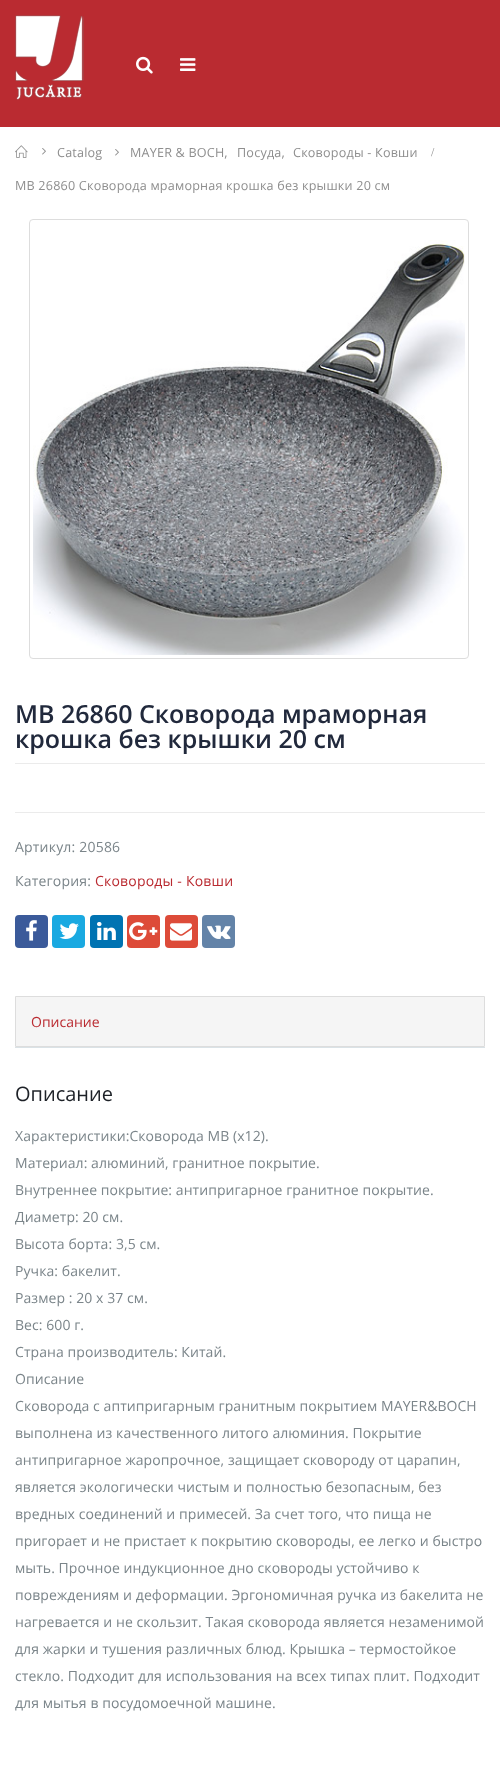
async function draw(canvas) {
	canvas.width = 500;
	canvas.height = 1782;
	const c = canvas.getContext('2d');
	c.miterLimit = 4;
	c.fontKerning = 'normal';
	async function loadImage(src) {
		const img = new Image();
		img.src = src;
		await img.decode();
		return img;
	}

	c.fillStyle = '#fff';
	c.fillRect(0, 0, 500, 1782);
	c.fillStyle = '#ba2b31';
	c.fillRect(0, 0, 500, 127);
	c.drawImage(await loadImage('img1.png'), 15, 15, 69, 85);
	c.drawImage(await loadImage('img2.png'), 136, 56, 17, 18);
	c.drawImage(await loadImage('img3.png'), 180, 58, 16, 13);
	c.drawImage(await loadImage('img4.png'), 15, 145, 13, 13);
	c.drawImage(await loadImage('img5.png'), 42, 148, 4, 7);
	c.letterSpacing = '0.2px';
	c.font = '12.6px Open Sans';
	c.fillStyle = '#8e8e8e';
	c.fillText('Catalog', 57, 157);
	c.drawImage(await loadImage('img5.png'), 115, 149, 4, 7);
	for (const [text, x, y] of [
		['MAYER & BOCH,', 130, 157],
		['Посуда,', 237, 157],
		['Сковороды - Ковши', 293, 157],
	]) {
		c.fillText(text, x, y);
	}
	c.font = '12px Liberation Serif';
	c.fillText('/', 431, 156);
	c.font = '12.6px Open Sans';
	c.fillText('MB 26860 Сковорода мраморная крошка без крышки 20 см', 15, 190);
	c.beginPath();
	c.roundRect(29.5, 219.5, 439, 439, 3.5);
	c.strokeStyle = '#ddd';
	c.stroke();
	c.drawImage(await loadImage('img6.png'), 33, 240, 432, 415);
	c.letterSpacing = '0px';
	c.font = '600 25px Open Sans';
	c.fillStyle = '#21293c';
	c.fillText('MB 26860 Сковорода мраморная', 15, 723);
	c.fillText('крошка без крышки 20 см', 15, 748);
	c.fillStyle = '#ebebeb';
	c.fillRect(15, 763, 470, 1);
	c.fillRect(15, 812, 470, 1);
	c.letterSpacing = '0.2px';
	c.font = '14px Open Sans';
	c.fillStyle = '#7b858a';
	c.fillText('Артикул: 20586', 15, 852);
	c.fillText('Категория:', 15, 886);
	c.fillStyle = '#ba2b31';
	c.fillText('Сковороды - Ковши', 95, 886);
	c.fillStyle = '#3b5a9a';
	c.beginPath();
	c.roundRect(15, 915, 33, 33, 4);
	c.fill();
	c.drawImage(await loadImage('img7.png'), 26, 920, 11, 21);
	c.fillStyle = '#1aa9e1';
	c.beginPath();
	c.roundRect(52, 915, 33, 33, 4);
	c.fill();
	c.drawImage(await loadImage('img8.png'), 59, 923, 20, 16);
	c.fillStyle = '#0073b2';
	c.beginPath();
	c.roundRect(90, 915, 33, 33, 4);
	c.fill();
	c.drawImage(await loadImage('img9.png'), 97, 922, 19, 18);
	c.fillStyle = '#dd4b39';
	c.beginPath();
	c.roundRect(127, 915, 33, 33, 4);
	c.fill();
	c.drawImage(await loadImage('img10.png'), 129, 922, 29, 19);
	c.beginPath();
	c.roundRect(165, 915, 33, 33, 4);
	c.fill();
	c.drawImage(await loadImage('img11.png'), 170, 923, 22, 18);
	c.fillStyle = '#6383a8';
	c.beginPath();
	c.roundRect(202, 915, 33, 33, 4);
	c.fill();
	c.drawImage(await loadImage('img12.png'), 207, 925, 24, 14);
	c.fillStyle = '#f5f5f5';
	c.beginPath();
	c.rect(15.5, 996.5, 469, 50);
	c.fill();
	c.stroke();
	c.letterSpacing = '0px';
	c.fillStyle = '#ba2b31';
	c.fillText('Описание', 31, 1027);
	c.fillStyle = '#dae2e6';
	c.fillRect(15, 1047, 470, 1);
	c.font = '20px Open Sans';
	c.fillStyle = '#1d2127';
	c.fillText('Описание', 15, 1101);
	c.letterSpacing = '0.07px';
	c.font = '14px Open Sans';
	c.fillStyle = '#7b858a';
	for (const [text, x, y] of [
		['Характеристики:Сковорода МВ (x12).', 15, 1141],
		['Материал: алюминий, гранитное покрытие.', 15, 1168],
		['Внутреннее покрытие: антипригарное гранитное покрытие.', 15, 1195],
		['Диаметр: 20 см.', 15, 1222],
		['Высота борта: 3,5 см.', 15, 1249],
		['Ручка: бакелит.', 15, 1276],
		['Размер : 20 х 37 см.', 15, 1303],
		['Вес: 600 г.', 15, 1330],
		['Страна производитель: Китай.', 15, 1357],
		['Описание', 15, 1384],
		['Сковорода с аптипригарным гранитным покрытием MAYER&BOCH', 15, 1411],
		['выполнена из качественного литого алюминия. Покрытие', 15, 1438],
		['антипригарное жаропрочное, защищает сковороду от царапин,', 15, 1465],
		['является экологически чистым и полностью безопасным, без', 15, 1492],
		['вредных соединений и примесей. За счет того, что пища не', 15, 1519],
		['пригорает и не пристает к покрытию сковороды, ее легко и быстро', 15, 1546],
		['мыть. Прочное индукционное дно сковороды устойчиво к', 15, 1573],
		['повреждениям и деформации. Эргономичная ручка из бакелита не', 15, 1600],
		['нагревается и не скользит. Такая сковорода является незаменимой', 15, 1627],
		['для жарки и тушения различных блюд. Крышка – термостойкое', 15, 1654],
		['стекло. Подходит для использования на всех типах плит. Подходит', 15, 1681],
		['для мытья в посудомоечной машине.', 15, 1708],
	]) {
		c.fillText(text, x, y);
	}
}

draw(document.querySelector('canvas'));
